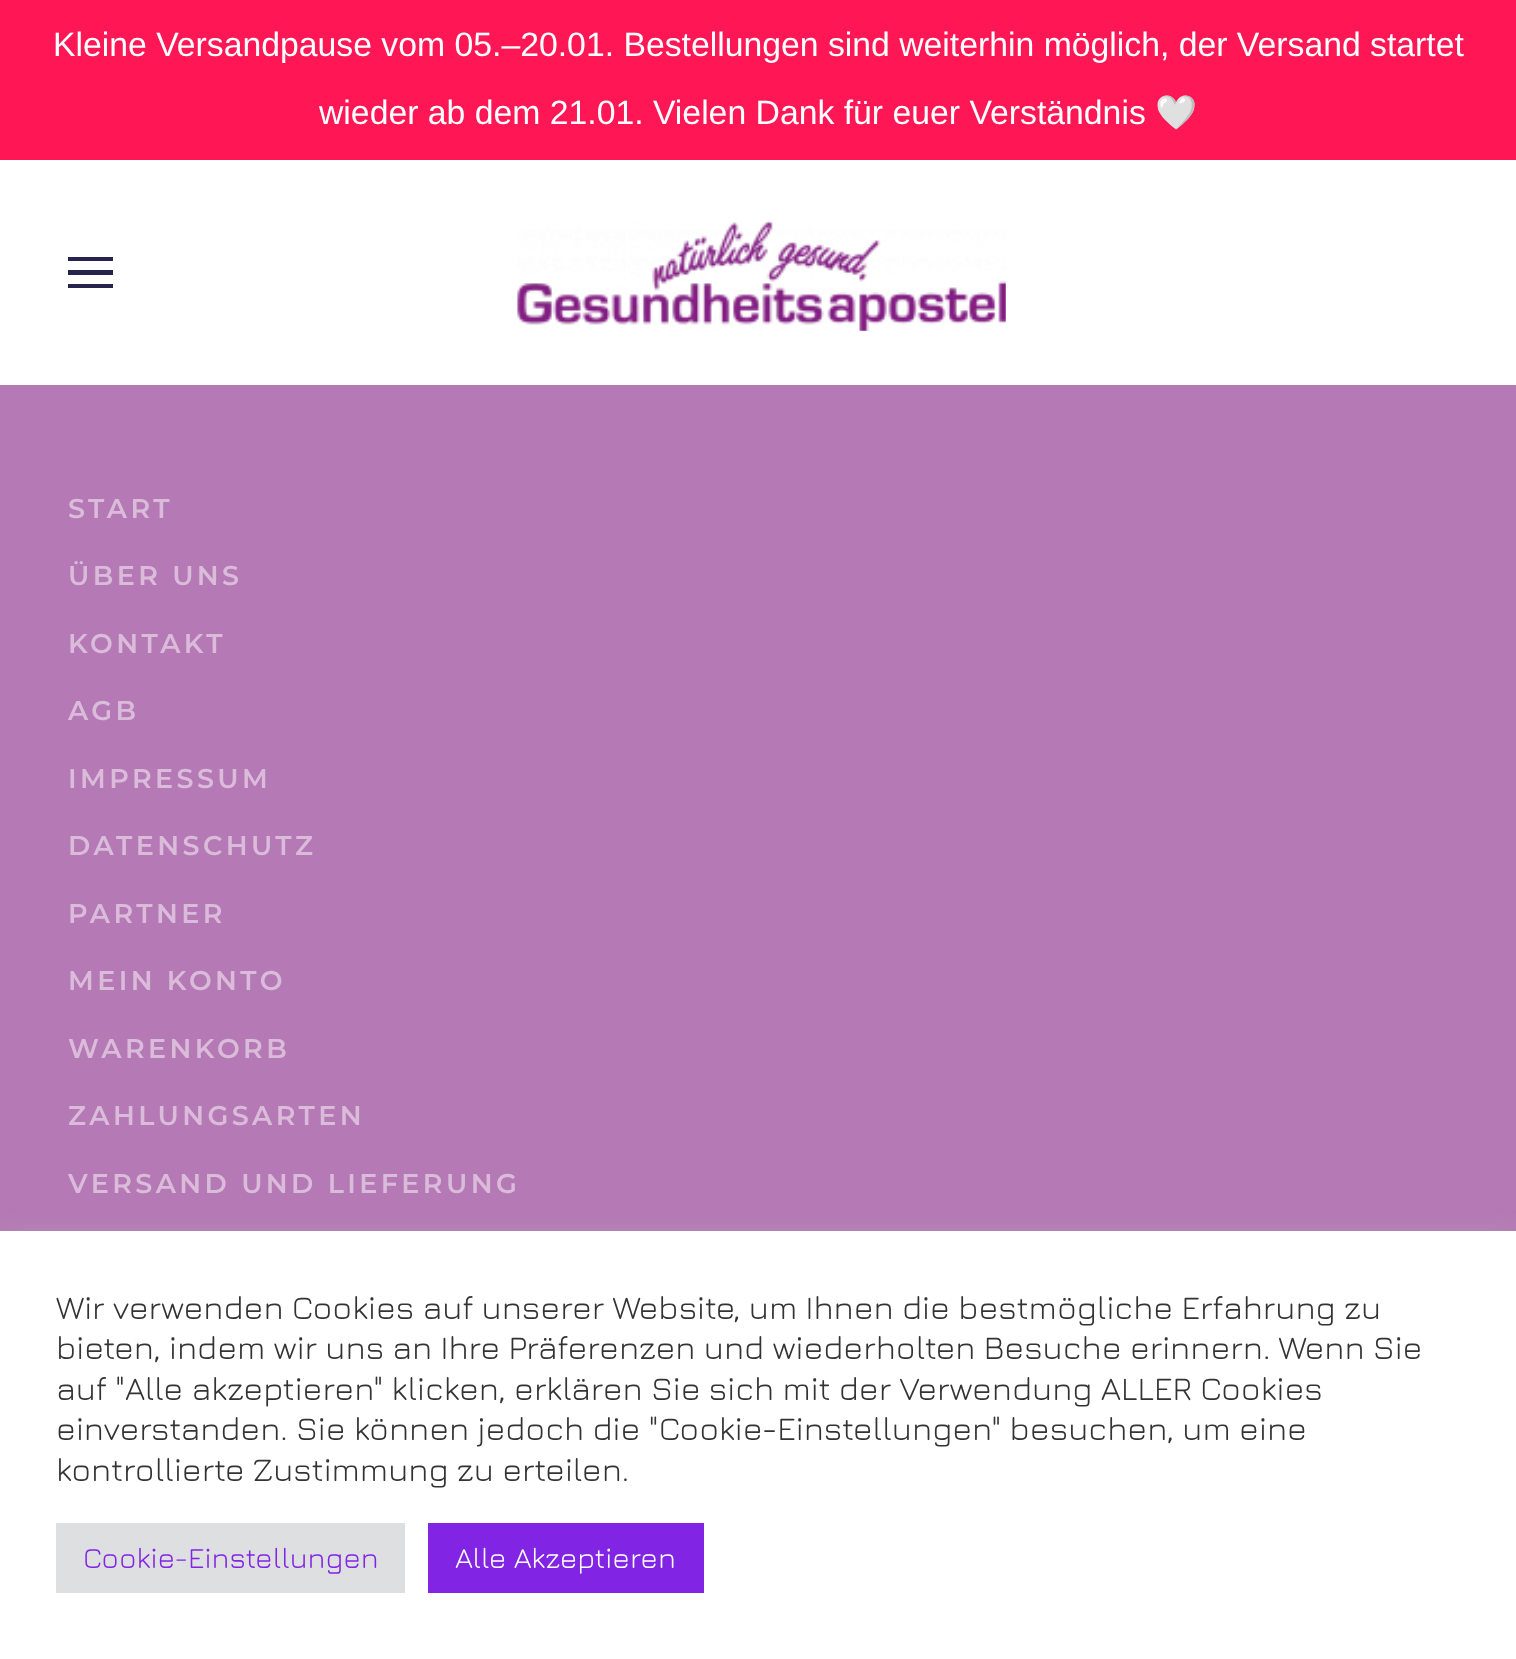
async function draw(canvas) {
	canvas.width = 1516;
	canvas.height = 1659;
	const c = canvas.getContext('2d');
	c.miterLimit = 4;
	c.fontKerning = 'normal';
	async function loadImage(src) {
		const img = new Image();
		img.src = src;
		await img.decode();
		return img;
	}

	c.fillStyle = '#fff';
	c.fillRect(0, 0, 1516, 1659);
	c.fillStyle = '#ff1654';
	c.fillRect(0, 0, 1516, 160);
	c.font = '33.75px Liberation Sans';
	c.fillStyle = '#fff';
	c.fillText('Kleine Versandpause vom 05.–20.01. Bestellungen sind weiterhin möglich, der Versand startet', 53, 56);
	c.fillText('wieder ab dem 21.01. Vielen Dank für euer Verständnis', 319, 124);
	c.font = '33.75px Noto Color Emoji';
	c.fillText('🤍', 1155, 124);
	for (const [x, y, w, h, color] of [
		[68, 257, 45, 4, '#26244c'],
		[68, 270, 45, 5, '#26244c'],
		[68, 284, 45, 4, '#26244c'],
	]) {
		c.fillStyle = color;
		c.fillRect(x, y, w, h);
	}
	c.drawImage(await loadImage('img1.png'), 517, 220, 489, 111);
	c.fillStyle = '#b579b5';
	c.fillRect(0, 385, 1516, 846);
	c.letterSpacing = '3.4px';
	c.font = '100 27px Montserrat';
	c.fillStyle = '#dabcda';
	for (const [text, x, y] of [
		['START', 68, 518],
		['ÜBER UNS', 68, 585],
		['KONTAKT', 68, 653],
		['AGB', 68, 720],
		['IMPRESSUM', 68, 788],
		['DATENSCHUTZ', 68, 855],
		['PARTNER', 68, 923],
		['MEIN KONTO', 68, 990],
		['WARENKORB', 68, 1058],
		['ZAHLUNGSARTEN', 68, 1125],
		['VERSAND UND LIEFERUNG', 68, 1193],
	]) {
		c.fillText(text, x, y);
	}
	c.fillStyle = '#acabab4d';
	c.filter = 'blur(11px)';
	c.beginPath();
	c.rect(0, 1229, 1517, 429);
	c.fill();
	c.filter = 'none';
	c.fillStyle = '#fff';
	c.fillRect(0, 1231, 1516, 428);
	c.letterSpacing = '0px';
	c.font = '300 33px Jura';
	c.fillStyle = '#333';
	for (const [text, x, y] of [
		['Wir verwenden Cookies auf unserer Website, um Ihnen die bestmögliche Erfahrung zu', 56, 1319],
		['bieten, indem wir uns an Ihre Präferenzen und wiederholten Besuche erinnern. Wenn Sie', 56, 1359],
		['auf "Alle akzeptieren" klicken, erklären Sie sich mit der Verwendung ALLER Cookies', 56, 1400],
		['einverstanden. Sie können jedoch die "Cookie-Einstellungen" besuchen, um eine', 56, 1440],
		['kontrollierte Zustimmung zu erteilen.', 56, 1481],
	]) {
		c.fillText(text, x, y);
	}
	c.fillStyle = '#dedfe0';
	c.fillRect(56, 1523, 349, 70);
	c.font = '300 29.25px Jura';
	c.fillStyle = '#8224e3';
	c.fillText('Cookie-Einstellungen', 83, 1568);
	c.fillRect(428, 1523, 276, 70);
	c.fillStyle = '#fff';
	c.fillText('Alle Akzeptieren', 455, 1568);
}

draw(document.querySelector('canvas'));
